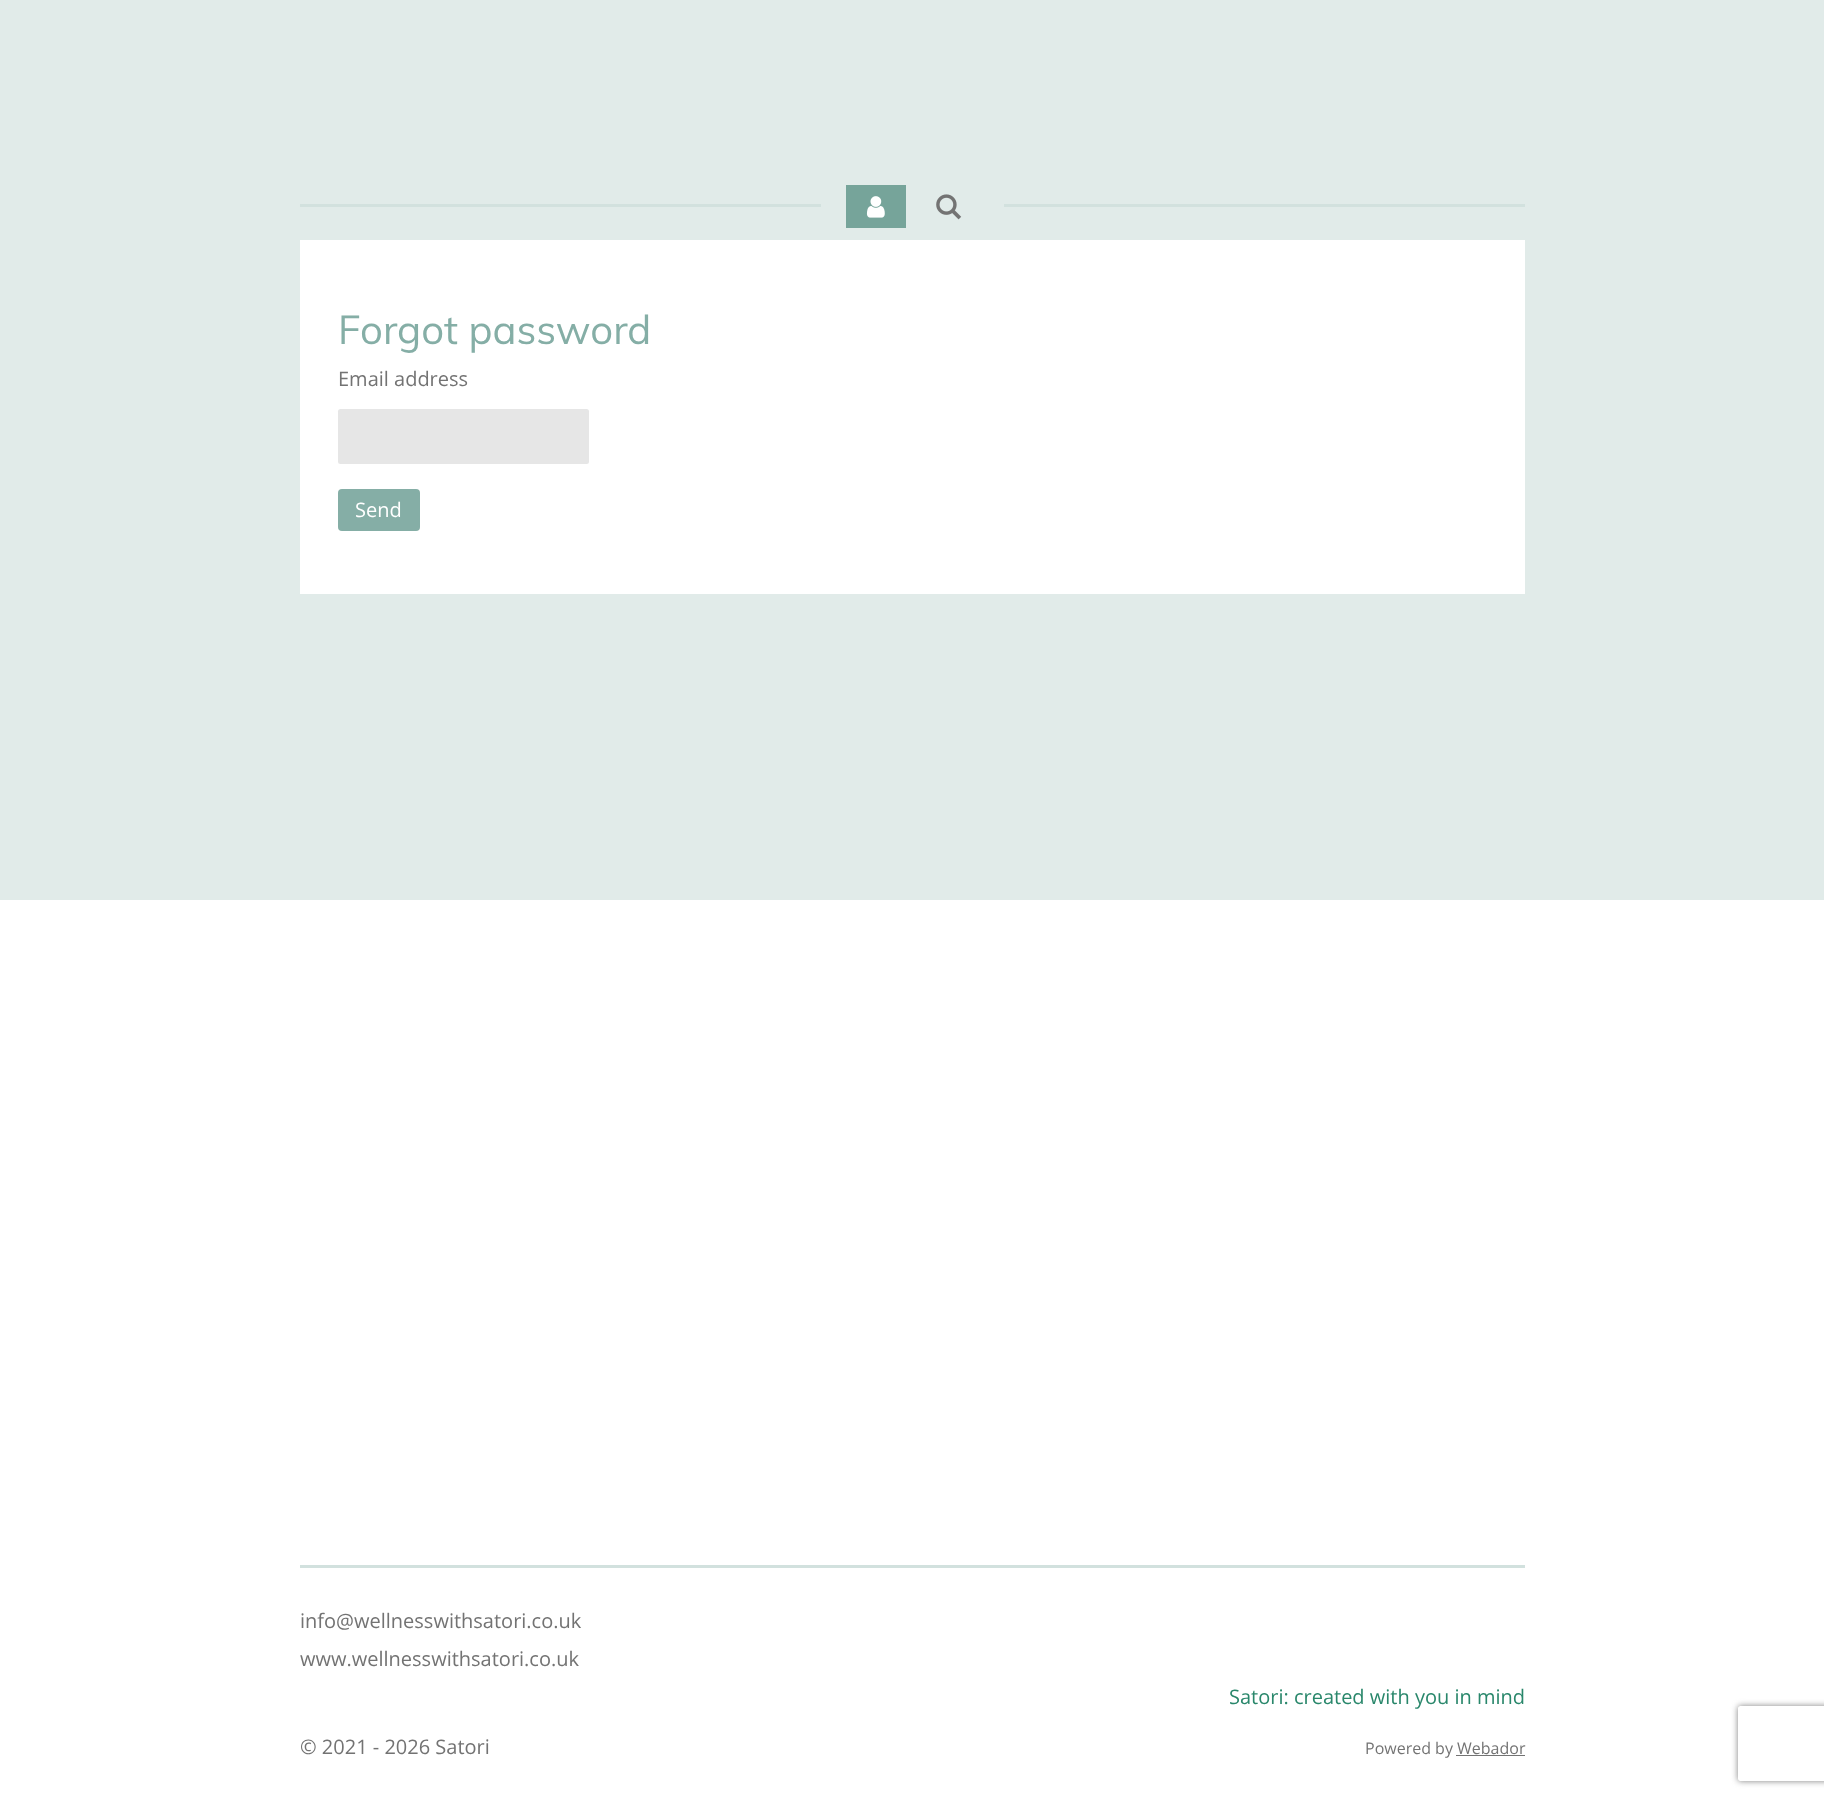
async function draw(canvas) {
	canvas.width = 1824;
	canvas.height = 1798;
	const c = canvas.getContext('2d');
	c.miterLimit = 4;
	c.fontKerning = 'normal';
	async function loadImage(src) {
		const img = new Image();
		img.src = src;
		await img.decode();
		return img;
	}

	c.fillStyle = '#fff';
	c.fillRect(0, 0, 1824, 1798);
	for (const [x, y, w, h, color] of [
		[0, 0, 1824, 900, '#e1ebe9'],
		[300, 204, 521, 3, '#d2e1de'],
		[846, 185, 60, 43, '#76a49a'],
	]) {
		c.fillStyle = color;
		c.fillRect(x, y, w, h);
	}
	c.drawImage(await loadImage('img1.png'), 866, 196, 19, 22);
	c.drawImage(await loadImage('img2.png'), 936, 194, 26, 26);
	c.fillStyle = '#d2e1de';
	c.fillRect(1004, 204, 521, 3);
	c.fillStyle = '#fff';
	c.fillRect(300, 240, 1225, 354);
	c.font = '40px Muli';
	c.fillStyle = '#85aea6';
	c.fillText('Forgot password', 338, 344);
	c.font = '20px Open Sans';
	c.fillStyle = '#737373';
	c.fillText('Email address', 338, 386);
	c.fillStyle = '#e6e6e6';
	c.beginPath();
	c.roundRect(338, 409, 251, 55, 2.5);
	c.fill();
	c.fillStyle = '#85aea6';
	c.beginPath();
	c.roundRect(338, 489, 82, 42, 4);
	c.fill();
	c.fillStyle = '#fff';
	c.fillText('Send', 355, 517);
	c.fillStyle = '#d2e1de';
	c.fillRect(300, 1565, 1225, 3);
	c.fillStyle = '#737373';
	c.fillText('info@wellnesswithsatori.co.uk', 300, 1628);
	c.fillText('www.wellnesswithsatori.co.uk', 300, 1666);
	c.fillStyle = '#29876b';
	c.fillText('Satori: created with you in mind', 1229, 1704);
	c.fillStyle = '#737373';
	c.fillText('© 2021 - 2026 Satori', 300, 1754);
	c.font = '16px Open Sans';
	c.fillText('Powered by Webador', 1365, 1754);
	c.fillRect(1456, 1755, 69, 1);
	c.save();
	c.beginPath();
	c.moveTo(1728, 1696);
	c.lineTo(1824, 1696);
	c.lineTo(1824, 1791);
	c.lineTo(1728, 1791);
	c.closePath();
	c.moveTo(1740.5, 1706);
	c.lineTo(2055.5, 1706);
	c.bezierCurveTo(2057, 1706, 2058, 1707, 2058, 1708.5);
	c.lineTo(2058, 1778.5);
	c.bezierCurveTo(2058, 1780, 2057, 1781, 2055.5, 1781);
	c.lineTo(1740.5, 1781);
	c.bezierCurveTo(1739, 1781, 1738, 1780, 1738, 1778.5);
	c.lineTo(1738, 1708.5);
	c.bezierCurveTo(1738, 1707, 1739, 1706, 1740.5, 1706);
	c.closePath();
	c.clip('evenodd');
	c.fillStyle = '#808080';
	c.filter = 'blur(3px)';
	c.beginPath();
	c.roundRect(1738, 1706, 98, 75, 2.5);
	c.fill();
	c.filter = 'none';
	c.restore();
}

draw(document.querySelector('canvas'));
